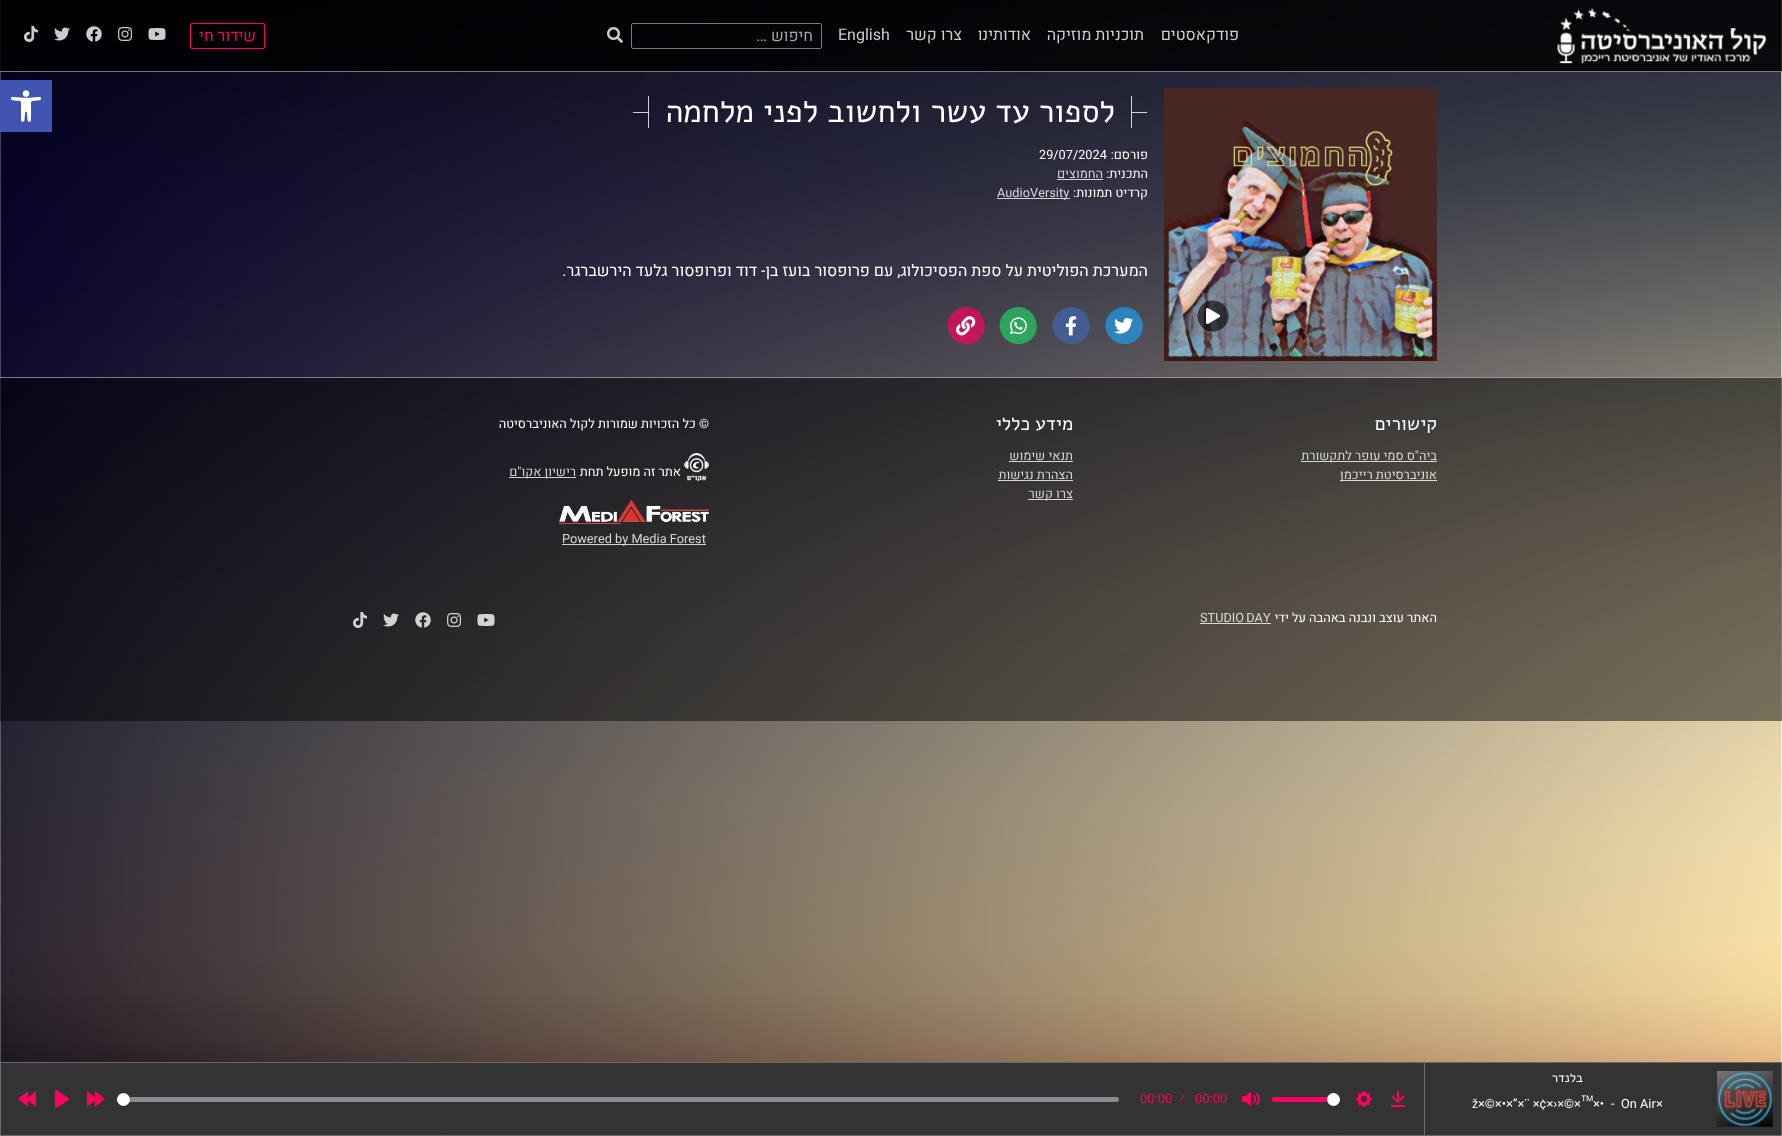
async function draw(canvas) {
	canvas.width = 1782;
	canvas.height = 1136;
	const c = canvas.getContext('2d');
	c.miterLimit = 4;
	c.fontKerning = 'normal';
	async function loadImage(src) {
		const img = new Image();
		img.src = src;
		await img.decode();
		return img;
	}

	c.fillStyle = '#fff';
	c.fillRect(0, 0, 1782, 1136);
	c.drawImage(await loadImage('img1.png'), 0, 0, 1782, 1062);
	c.fillStyle = '#000000cc';
	c.fillRect(0, 0, 1782, 72);
	c.fillStyle = '#ffffff78';
	c.fillRect(0, 71, 1782, 1);
	c.drawImage(await loadImage('img2.png'), 1557, 8, 209, 56);
	c.direction = 'rtl';
	c.font = '16px Heebo';
	c.fillStyle = '#cdcdce';
	for (const [text, x, y] of [
		['פודקאסטים', 1239, 40],
		['תוכניות מוזיקה', 1144, 40],
		['אודותינו', 1031, 40],
		['צרו קשר', 962, 40],
	]) {
		c.fillText(text, x, y);
	}
	c.direction = 'ltr';
	c.fillText('English', 838, 40);
	c.beginPath();
	c.roundRect(631.5, 23.5, 190, 25, 1.5);
	c.strokeStyle = '#79797b';
	c.stroke();
	c.direction = 'rtl';
	c.fillStyle = '#a4a4a5';
	c.fillText('חיפוש …', 813, 41);
	c.drawImage(await loadImage('img3.png'), 607, 27, 16, 16);
	c.beginPath();
	c.roundRect(190.5, 23.5, 74, 25, 1.5);
	c.strokeStyle = '#ff0160';
	c.stroke();
	c.fillStyle = '#ff0160';
	c.fillText('שידור חי', 256, 41);
	c.drawImage(await loadImage('img4.png'), 148, 28, 18, 12);
	c.drawImage(await loadImage('img5.png'), 118, 27, 15, 14);
	c.drawImage(await loadImage('img6.png'), 86, 26, 16, 16);
	c.drawImage(await loadImage('img7.png'), 54, 27, 16, 14);
	c.drawImage(await loadImage('img8.png'), 24, 26, 14, 16);
	c.drawImage(await loadImage('img9.png'), 1164, 88, 273, 273);
	c.fillStyle = '#00000099';
	c.beginPath();
	c.moveTo(1202, 305);
	c.bezierCurveTo(1204.5, 302.5, 1208, 301, 1211.5, 300.5);
	c.bezierCurveTo(1226, 299.5, 1234.5, 316.5, 1224, 327);
	c.bezierCurveTo(1213.5, 337.5, 1196.5, 329, 1197.5, 314.5);
	c.bezierCurveTo(1198, 311, 1199.5, 307.5, 1202, 305);
	c.closePath();
	c.fill();
	c.drawImage(await loadImage('img10.png'), 1206, 308, 14, 16);
	for (const [x, y, w, h, color] of [
		[1131, 96, 1, 32, '#ffffffcc'],
		[648, 96, 1, 32, '#ffffffcc'],
		[1131, 112, 16, 1, '#ffffffcc'],
	]) {
		c.fillStyle = color;
		c.fillRect(x, y, w, h);
	}
	c.font = '32px Alef';
	c.fillStyle = '#fff';
	c.fillText('לספור עד עשר ולחשוב לפני מלחמה', 1115, 122);
	c.fillStyle = '#ffffffcc';
	c.fillRect(633, 112, 16, 1);
	c.font = '12.75px Heebo';
	c.fillStyle = '#fff';
	c.fillText('פורסם:', 1148, 159);
	c.direction = 'ltr';
	c.fillText('29/07/2024', 1039, 159);
	c.direction = 'rtl';
	c.fillText('התכנית:', 1148, 178);
	c.fillStyle = '#d5d5d8';
	c.fillText('החמוצים', 1103, 178);
	c.fillStyle = '#d5d5d9';
	c.fillRect(1057, 179, 46, 1);
	c.fillStyle = '#fff';
	c.fillText('קרדיט תמונות:', 1148, 197);
	c.fillStyle = '#ffffffcc';
	c.fillRect(997, 198, 73, 1);
	c.direction = 'ltr';
	c.fillStyle = '#d5d5d8';
	c.fillText('AudioVersity', 997, 197);
	c.direction = 'rtl';
	c.font = '16px Heebo';
	c.fillStyle = '#fff';
	c.fillText('המערכת הפוליטית על ספת הפסיכולוג, עם פרופסור בועז בן- דוד ופרופסור גלעד הירשברגר.', 1148, 276);
	c.fillStyle = '#1da1f2ab';
	c.beginPath();
	c.moveTo(1111, 312.5);
	c.bezierCurveTo(1114, 309.5, 1118, 307.5, 1122.5, 307);
	c.bezierCurveTo(1139.5, 305.5, 1149.5, 326.5, 1137.5, 339);
	c.bezierCurveTo(1134.5, 342, 1130.5, 343.5, 1126, 344);
	c.bezierCurveTo(1109, 345.5, 1098.5, 325, 1111, 312.5);
	c.closePath();
	c.fill();
	c.drawImage(await loadImage('img11.png'), 1114, 318, 19, 16);
	c.fillStyle = '#4267b2ab';
	c.beginPath();
	c.moveTo(1058, 312.5);
	c.bezierCurveTo(1061, 309.5, 1065, 307.5, 1069.5, 307);
	c.bezierCurveTo(1086.5, 305.5, 1096.5, 326.5, 1084.5, 339);
	c.bezierCurveTo(1081.5, 342, 1077.5, 343.5, 1073, 344);
	c.bezierCurveTo(1056, 345.5, 1045.5, 325, 1058, 312.5);
	c.closePath();
	c.fill();
	c.drawImage(await loadImage('img12.png'), 1065, 316, 12, 20);
	c.fillStyle = '#25d366ab';
	c.beginPath();
	c.moveTo(1005, 312.5);
	c.bezierCurveTo(1008, 309.5, 1012, 307.5, 1016.5, 307);
	c.bezierCurveTo(1033.5, 305.5, 1043.5, 326.5, 1031.5, 339);
	c.bezierCurveTo(1028.5, 342, 1024.5, 343.5, 1020, 344);
	c.bezierCurveTo(1003, 345.5, 992.5, 325, 1005, 312.5);
	c.closePath();
	c.fill();
	c.drawImage(await loadImage('img13.png'), 1010, 317, 17, 18);
	c.fillStyle = '#ff0160ab';
	c.beginPath();
	c.moveTo(953, 312.5);
	c.bezierCurveTo(956, 309.5, 960, 307.5, 964.5, 307);
	c.bezierCurveTo(981.5, 305.5, 991.5, 326.5, 979.5, 339);
	c.bezierCurveTo(976.5, 342, 972.5, 343.5, 968, 344);
	c.bezierCurveTo(951, 345.5, 940.5, 325, 953, 312.5);
	c.closePath();
	c.fill();
	c.drawImage(await loadImage('img14.png'), 956, 316, 20, 20);
	c.fillStyle = '#00000078';
	c.fillRect(0, 377, 1782, 344);
	c.fillStyle = '#ffffff78';
	c.fillRect(0, 377, 1782, 1);
	c.font = '19px Alef';
	c.fillStyle = '#fff';
	c.fillText('קישורים', 1437, 430);
	c.fillStyle = '#ffffffcc';
	c.fillRect(1301, 461, 136, 1);
	c.font = '12.75px Heebo';
	c.fillStyle = '#d5d5d8';
	c.fillText('ביה"ס סמי עופר לתקשורת', 1437, 460);
	c.fillStyle = '#ffffffcc';
	c.fillRect(1340, 480, 97, 1);
	c.fillStyle = '#dbdad9';
	c.fillText('אוניברסיטת רייכמן', 1437, 479);
	c.font = '19px Alef';
	c.fillStyle = '#fff';
	c.fillText('מידע כללי', 1073, 430);
	c.font = '12.75px Heebo';
	c.fillStyle = '#d5d5d8';
	c.fillText('תנאי שימוש', 1073, 460);
	c.fillStyle = '#ffffffcc';
	c.fillRect(1009, 461, 64, 1);
	c.fillStyle = '#d5d5d8';
	c.fillText('הצהרת נגישות', 1073, 479);
	c.fillStyle = '#ffffffcc';
	c.fillRect(998, 480, 75, 1);
	c.fillStyle = '#d8d7d7';
	c.fillRect(1028, 499, 45, 1);
	c.fillStyle = '#d5d5d8';
	c.fillText('צרו קשר', 1073, 498);
	c.fillStyle = '#fff';
	c.fillText('© כל הזכויות שמורות לקול האוניברסיטה', 709, 428);
	c.drawImage(await loadImage('img15.png'), 684, 453, 25, 28);
	c.fillText('אתר זה מופעל תחת', 681, 476);
	c.fillStyle = '#ffffffcc';
	c.fillRect(509, 477, 67, 1);
	c.fillStyle = '#d5d5d8';
	c.fillText('רישיון אקו"ם', 576, 476);
	c.drawImage(await loadImage('img16.png'), 559, 500, 150, 24);
	c.fillStyle = '#ffffffcc';
	c.fillRect(562, 544, 144, 1);
	c.direction = 'ltr';
	c.fillStyle = '#d5d5d8';
	c.fillText('Powered by Media Forest', 562, 543);
	c.direction = 'rtl';
	c.fillStyle = '#fff';
	c.fillText('האתר עוצב ונבנה באהבה על ידי', 1437, 622);
	c.wordSpacing = '-1px';
	c.direction = 'ltr';
	c.fillStyle = '#dbdad9';
	c.fillText('STUDIO DAY', 1200, 622);
	c.fillStyle = '#ffffffcc';
	c.fillRect(1200, 623, 71, 1);
	c.drawImage(await loadImage('img17.png'), 477, 614, 18, 12);
	c.drawImage(await loadImage('img18.png'), 447, 613, 15, 14);
	c.drawImage(await loadImage('img19.png'), 415, 612, 16, 16);
	c.drawImage(await loadImage('img20.png'), 383, 613, 16, 14);
	c.drawImage(await loadImage('img21.png'), 353, 612, 14, 16);
	c.fillStyle = '#333';
	c.beginPath();
	c.rect(0.5, 1062.5, 1781, 73);
	c.fill();
	c.strokeStyle = '#696969';
	c.stroke();
	c.drawImage(await loadImage('img22.png'), 1717, 1071, 56, 56);
	c.wordSpacing = '0px';
	c.direction = 'rtl';
	c.font = '12.75px Alef';
	c.fillStyle = '#fff';
	c.fillText('בלנדר', 1583, 1082);
	c.direction = 'ltr';
	c.font = '12.75px Heebo';
	for (const [text, x, y] of [
		['×', 1656, 1108],
		['On Air', 1621, 1108],
		['-', 1611, 1108],
		['×©×•×“×¨ ×¢×›×©×™×•', 1478, 1108],
	]) {
		c.fillText(text, x, y);
	}
	c.font = '12.75px Liberation Sans';
	c.fillText('ž', 1472, 1108);
	c.fillStyle = '#696969';
	c.fillRect(1424, 1063, 1, 72);
	c.drawImage(await loadImage('img23.png'), 1391, 1091, 14, 16);
	c.drawImage(await loadImage('img24.png'), 1356, 1091, 16, 16);
	c.fillStyle = '#ff0160';
	c.beginPath();
	c.roundRect(1272, 1097, 68, 5, 2.5);
	c.fill();
	c.beginPath();
	c.arc(1333.5, 1099.5, 7, 0, 2 * Math.PI);
	c.strokeStyle = '#23282f33';
	c.stroke();
	c.fillStyle = '#23282f26';
	c.filter = 'blur(0.5px)';
	c.beginPath();
	c.roundRect(1327, 1094, 13, 13, 6.5);
	c.fill();
	c.filter = 'none';
	c.fillStyle = '#fff';
	c.beginPath();
	c.arc(1333.5, 1099.5, 6.5, 0, 2 * Math.PI);
	c.fill();
	c.drawImage(await loadImage('img25.png'), 1242, 1092, 18, 14);
	c.font = '13px Heebo';
	c.fillStyle = '#ff0160';
	for (const [text, x, y] of [
		['00:00', 1195, 1103],
		['⁄', 1179, 1103],
		['00:00', 1140, 1103],
	]) {
		c.fillText(text, x, y);
	}
	c.fillStyle = '#c1c8d199';
	c.beginPath();
	c.roundRect(117, 1097, 1002, 5, 2.5);
	c.fill();
	c.beginPath();
	c.arc(123.5, 1099.5, 7, 0, 2 * Math.PI);
	c.stroke();
	c.fillStyle = '#23282f26';
	c.filter = 'blur(0.5px)';
	c.beginPath();
	c.roundRect(117, 1094, 13, 13, 6.5);
	c.fill();
	c.filter = 'none';
	c.fillStyle = '#fff';
	c.beginPath();
	c.arc(123.5, 1099.5, 6.5, 0, 2 * Math.PI);
	c.fill();
	c.drawImage(await loadImage('img26.png'), 87, 1091, 18, 16);
	c.drawImage(await loadImage('img27.png'), 55, 1090, 14, 18);
	c.drawImage(await loadImage('img28.png'), 18, 1091, 18, 16);
	c.fillStyle = '#4054b2';
	c.fillRect(0, 80, 52, 52);
	c.drawImage(await loadImage('img29.png'), 11, 90, 30, 32);
}

draw(document.querySelector('canvas'));
